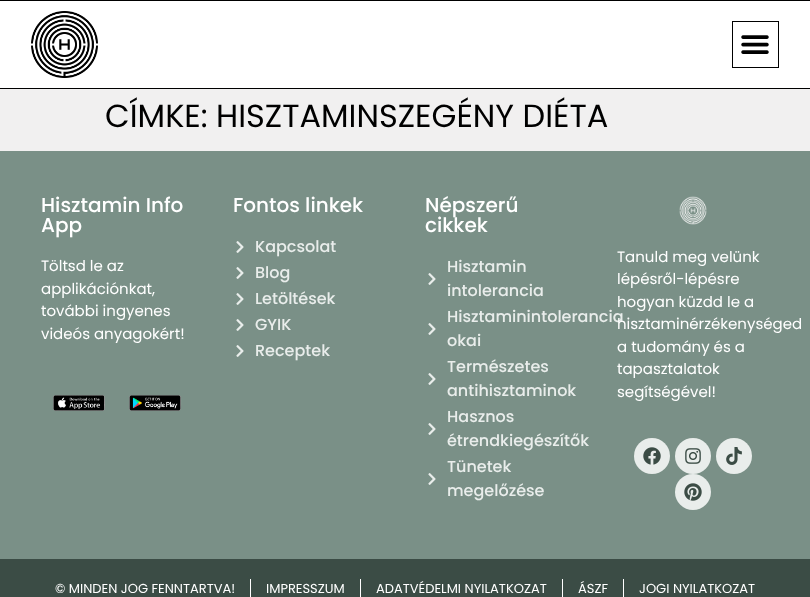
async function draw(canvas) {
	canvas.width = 810;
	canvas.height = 597;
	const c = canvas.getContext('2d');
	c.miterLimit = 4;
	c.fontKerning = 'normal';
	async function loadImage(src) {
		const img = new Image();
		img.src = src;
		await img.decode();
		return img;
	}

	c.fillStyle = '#f1f0f0';
	c.fillRect(0, 0, 810, 597);
	for (const [x, y, w, h, color] of [
		[0, 1, 810, 87, '#fff'],
		[0, 0, 810, 1, '#000'],
		[0, 88, 810, 1, '#000'],
	]) {
		c.fillStyle = color;
		c.fillRect(x, y, w, h);
	}
	c.drawImage(await loadImage('img1.png'), 31, 11, 67, 67);
	c.strokeStyle = '#000';
	c.strokeRect(732.5, 21.5, 46, 46);
	c.drawImage(await loadImage('img2.png'), 741, 35, 28, 19);
	c.font = '32px Poppins';
	c.fillText('CÍMKE: HISZTAMINSZEGÉNY DIÉTA', 105, 127);
	c.fillStyle = '#7a9087';
	c.fillRect(0, 151, 810, 408);
	c.font = '500 20px Poppins';
	c.fillStyle = '#fff';
	c.fillText('Hisztamin Info', 41, 212);
	c.fillText('App', 41, 232);
	c.font = '15px Poppins';
	for (const [text, x, y] of [
		['Töltsd le az', 41, 271],
		['applikációnkat,', 41, 294],
		['további ingyenes', 41, 316],
		['videós anyagokért!', 41, 339],
	]) {
		c.fillText(text, x, y);
	}
	c.drawImage(await loadImage('img3.png'), 53, 395, 52, 16);
	c.drawImage(await loadImage('img4.png'), 129, 395, 53, 16);
	c.font = '500 20px Poppins';
	c.fillText('Fontos linkek', 233, 212);
	c.drawImage(await loadImage('img5.png'), 236, 241, 8, 12);
	c.font = '500 16px Poppins';
	c.fillStyle = '#e9edeb';
	c.fillText('Kapcsolat', 255, 252);
	c.drawImage(await loadImage('img5.png'), 236, 267, 8, 12);
	c.fillText('Blog', 255, 278);
	c.drawImage(await loadImage('img5.png'), 236, 293, 8, 12);
	c.fillText('Letöltések', 255, 304);
	c.drawImage(await loadImage('img5.png'), 236, 319, 8, 12);
	c.fillText('GYIK', 255, 330);
	c.drawImage(await loadImage('img5.png'), 236, 345, 8, 12);
	c.fillText('Receptek', 255, 356);
	c.font = '500 20px Poppins';
	c.fillStyle = '#fff';
	c.fillText('Népszerű', 425, 212);
	c.fillText('cikkek', 425, 232);
	c.drawImage(await loadImage('img5.png'), 428, 273, 8, 12);
	c.font = '500 16px Poppins';
	c.fillStyle = '#e9edeb';
	c.fillText('Hisztamin', 447, 272);
	c.fillText('intolerancia', 447, 296);
	c.drawImage(await loadImage('img5.png'), 428, 323, 8, 12);
	c.fillText('Hisztaminintolerancia', 447, 322);
	c.fillText('okai', 447, 346);
	c.drawImage(await loadImage('img5.png'), 428, 373, 8, 12);
	c.fillText('Természetes', 447, 372);
	c.fillText('antihisztaminok', 447, 396);
	c.drawImage(await loadImage('img5.png'), 428, 423, 8, 12);
	c.fillText('Hasznos', 447, 422);
	c.fillText('étrendkiegészítők', 447, 446);
	c.drawImage(await loadImage('img5.png'), 428, 473, 8, 12);
	c.fillText('Tünetek', 447, 472);
	c.fillText('megelőzése', 447, 496);
	c.drawImage(await loadImage('img6.png'), 679, 196, 28, 29);
	c.font = '15px Poppins';
	c.fillStyle = '#fff';
	for (const [text, x, y] of [
		['Tanuld meg velünk', 617, 262],
		['lépésről-lépésre', 617, 284],
		['hogyan küzdd le a', 617, 307],
		['hisztaminérzékenységed', 617, 329],
		['a tudomány és a', 617, 352],
		['tapasztalatok', 617, 374],
		['segítségével!', 617, 397],
	]) {
		c.fillText(text, x, y);
	}
	c.fillStyle = '#e9edeb';
	c.beginPath();
	c.arc(652, 456, 18, 0, 2 * Math.PI);
	c.fill();
	c.drawImage(await loadImage('img7.png'), 643, 447, 18, 18);
	c.beginPath();
	c.arc(693, 456, 18, 0, 2 * Math.PI);
	c.fill();
	c.drawImage(await loadImage('img8.png'), 685, 448, 16, 16);
	c.beginPath();
	c.arc(734, 456, 18, 0, 2 * Math.PI);
	c.fill();
	c.drawImage(await loadImage('img9.png'), 726, 447, 16, 18);
	c.beginPath();
	c.arc(693, 492, 18, 0, 2 * Math.PI);
	c.fill();
	c.drawImage(await loadImage('img10.png'), 684, 483, 18, 18);
	c.fillStyle = '#3b4c45';
	c.fillRect(0, 559, 810, 38);
	c.font = '13px Poppins';
	c.fillStyle = '#fff';
	c.fillText('© MINDEN JOG FENNTARTVA!', 55, 593);
	c.fillRect(250, 579, 1, 18);
	c.fillText('IMPRESSZUM', 266, 593);
	c.fillRect(360, 579, 1, 18);
	c.fillText('ADATVÉDELMI NYILATKOZAT', 376, 593);
	c.fillRect(562, 579, 1, 18);
	c.fillText('ÁSZF', 578, 593);
	c.fillRect(623, 579, 1, 18);
	c.fillText('JOGI NYILATKOZAT', 639, 593);
}

draw(document.querySelector('canvas'));
